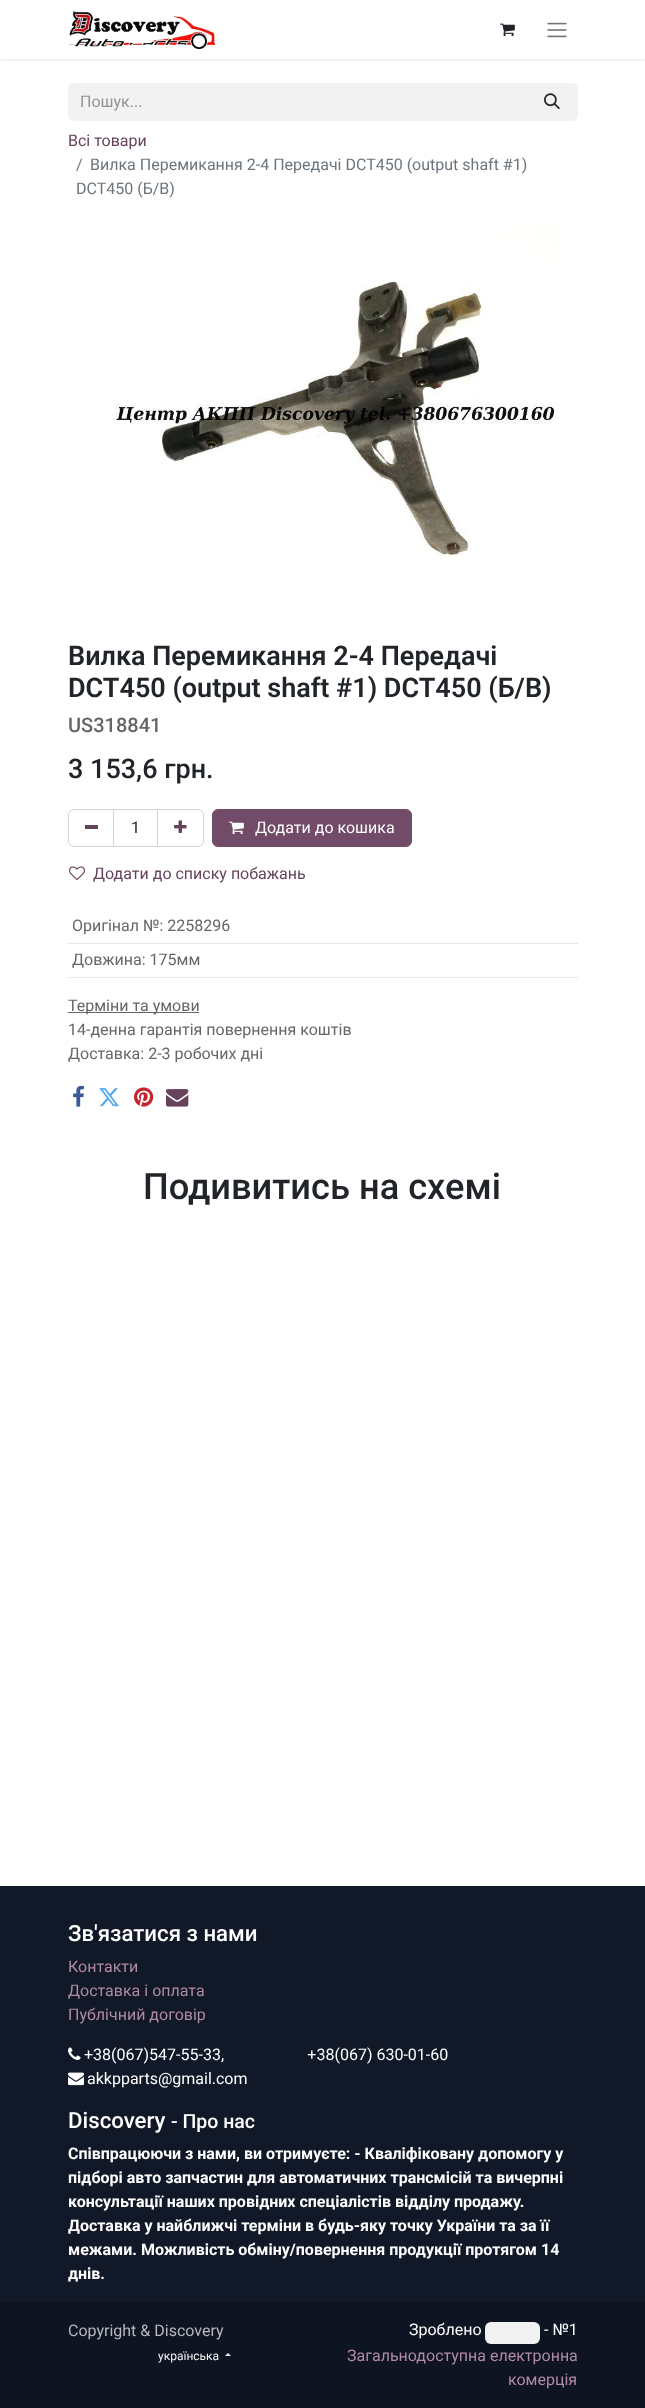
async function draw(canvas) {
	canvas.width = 645;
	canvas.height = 2408;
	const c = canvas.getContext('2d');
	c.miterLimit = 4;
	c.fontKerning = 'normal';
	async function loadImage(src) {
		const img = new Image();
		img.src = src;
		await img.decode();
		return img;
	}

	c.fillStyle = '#fff';
	c.fillRect(0, 0, 645, 2408);
	c.save();
	c.beginPath();
	c.rect(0, 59, 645, 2);
	c.clip();
	c.fillStyle = '#0000001a';
	c.filter = 'blur(1.5px)';
	c.beginPath();
	c.rect(0, 1, 645, 59);
	c.fill();
	c.filter = 'none';
	c.restore();
	c.drawImage(await loadImage('img1.png'), 68, 11, 147, 38);
	c.drawImage(await loadImage('img2.png'), 500, 23, 15, 14);
	c.drawImage(await loadImage('img3.png'), 547, 22, 20, 16);
	c.fillStyle = '#f3f2f2';
	c.beginPath();
	c.roundRect(68, 83, 460, 38, [6, 0, 0, 6]);
	c.fill();
	c.font = '16px Roboto';
	c.fillStyle = '#909294';
	c.fillText('Пошук...', 80, 107);
	c.fillStyle = '#f3f2f2';
	c.beginPath();
	c.roundRect(527.5, 83.5, 50, 37, [0, 5.5, 5.5, 0]);
	c.fill();
	c.strokeStyle = '#f3f2f2';
	c.stroke();
	c.drawImage(await loadImage('img4.png'), 544, 93, 16, 17);
	c.fillStyle = '#65435c';
	c.fillText('Всі товари', 68, 146);
	c.fillStyle = '#6c757d';
	for (const [text, x, y] of [
		['/', 76, 170],
		['Вилка Перемикання 2-4 Передачі DCT450 (output shaft #1)', 90, 170],
		['DCT450 (Б/В)', 76, 194],
	]) {
		c.fillText(text, x, y);
	}
	c.drawImage(await loadImage('img5.png'), 114, 225, 447, 356);
	c.font = '600 27px Roboto';
	c.fillStyle = '#212529';
	c.fillText('Вилка Перемикання 2-4 Передачі', 68, 665);
	c.fillText('DCT450 (output shaft #1) DCT450 (Б/В)', 68, 697);
	c.font = '500 20px Roboto';
	c.fillStyle = '#646669';
	c.fillText('US318841', 68, 732);
	c.font = '500 27px Roboto';
	c.fillStyle = '#212529';
	c.fillText('3 153,6 грн.', 68, 778);
	c.strokeStyle = '#ced4da';
	c.strokeRect(113.5, 809.5, 44, 37);
	c.beginPath();
	c.roundRect(68.5, 809.5, 45, 37, [5.5, 0, 0, 5.5]);
	c.stroke();
	c.fillStyle = '#65435c';
	c.fillRect(85, 825, 13, 4);
	c.font = '16px Roboto';
	c.fillStyle = '#212529';
	c.fillText('1', 131, 833);
	c.beginPath();
	c.roundRect(157.5, 809.5, 46, 37, [0, 5.5, 5.5, 0]);
	c.stroke();
	c.drawImage(await loadImage('img6.png'), 174, 820, 13, 13);
	c.fillStyle = '#714b67';
	c.beginPath();
	c.roundRect(212.5, 809.5, 199, 37, 5.5);
	c.fill();
	c.strokeStyle = '#714b67';
	c.stroke();
	c.drawImage(await loadImage('img7.png'), 229, 821, 15, 14);
	c.fillStyle = '#fff';
	c.fillText('Додати до кошика', 255, 833);
	c.drawImage(await loadImage('img8.png'), 69, 866, 16, 15);
	c.fillStyle = '#65435c';
	c.fillText('Додати до списку побажань', 93, 879);
	c.fillStyle = '#e8e8e8';
	c.fillRect(67, 943, 511, 1);
	c.fillStyle = '#646669';
	c.fillText('Оригінал №: 2258296', 72, 931);
	c.fillStyle = '#e8e8e8';
	c.fillRect(67, 977, 511, 1);
	c.fillStyle = '#646669';
	c.fillText('Довжина: 175мм', 72, 965);
	c.fillRect(68, 1012, 131, 1);
	for (const [text, x, y] of [
		['Терміни та умови', 68, 1011],
		['14-денна гарантія повернення коштів', 68, 1035],
		['Доставка: 2-3 робочих дні', 68, 1059],
	]) {
		c.fillText(text, x, y);
	}
	c.drawImage(await loadImage('img9.png'), 73, 1085, 11, 22);
	c.drawImage(await loadImage('img10.png'), 99, 1088, 20, 19);
	c.drawImage(await loadImage('img11.png'), 134, 1087, 20, 20);
	c.drawImage(await loadImage('img12.png'), 166, 1089, 23, 18);
	c.font = '500 36.25px Roboto';
	c.fillStyle = '#212529';
	c.fillText('Подивитись на схемі', 143, 1199);
	c.fillStyle = '#111827';
	c.fillRect(0, 1886, 645, 416);
	c.font = '500 22.25px Roboto';
	c.fillStyle = '#fff';
	c.fillText('Зв\'язатися з нами', 68, 1941);
	c.font = '16px Roboto';
	c.fillStyle = '#b18aa7';
	for (const [text, x, y] of [
		['Контакти', 68, 1972],
		['Доставка і оплата', 68, 1996],
		['Публічний договір', 68, 2020],
	]) {
		c.fillText(text, x, y);
	}
	c.drawImage(await loadImage('img13.png'), 68, 2047, 13, 13);
	c.fillStyle = '#fff';
	c.fillText('+38(067)547-55-33,                     +38(067) 630-01-60', 84, 2060);
	c.drawImage(await loadImage('img14.png'), 68, 2072, 16, 14);
	c.fillText('akkpparts@gmail.com', 87, 2084);
	c.font = '500 22.25px Roboto';
	c.fillText('Discovery', 68, 2128);
	c.font = '500 19.5px Roboto';
	c.fillText('- Про нас', 171, 2128);
	c.font = 'bold 16px Roboto';
	for (const [text, x, y] of [
		['Співпрацюючи з нами, ви отримуєте: - Кваліфіковану допомогу у', 68, 2159],
		['підборі авто запчастин для автоматичних трансмісій та вичерпні', 68, 2183],
		['консультації наших провідних спеціалістів відділу продажу.', 68, 2207],
		['Доставка у найближчі терміни в будь-яку точку України та за її', 68, 2231],
		['межами. Можливість обміну/повернення продукції протягом 14', 68, 2255],
		['днів.', 68, 2279],
	]) {
		c.fillText(text, x, y);
	}
	c.fillStyle = '#0e1421';
	c.fillRect(0, 2302, 645, 106);
	c.font = '16px Roboto';
	c.fillStyle = '#b7b9bc';
	c.fillText('Copyright & Discovery', 68, 2336);
	c.font = '12px Roboto';
	c.fillStyle = '#f3f2f2';
	c.fillText('українська', 158, 2360);
	c.beginPath();
	c.moveTo(231, 2356);
	c.lineTo(225, 2356);
	c.lineTo(228, 2353);
	c.closePath();
	c.fill();
	c.font = '16px Roboto';
	c.fillStyle = '#fff';
	c.fillText('Зроблено', 409, 2335);
	c.fillStyle = '#f3f2f2';
	c.beginPath();
	c.roundRect(485, 2322, 55, 22, 6);
	c.fill();
	c.fillStyle = '#fff';
	c.fillText('- №1', 544, 2335);
	c.fillStyle = '#b18aa7';
	c.fillText('Загальнодоступна електронна', 347, 2361);
	c.fillText('комерція', 508, 2385);
}

draw(document.querySelector('canvas'));
